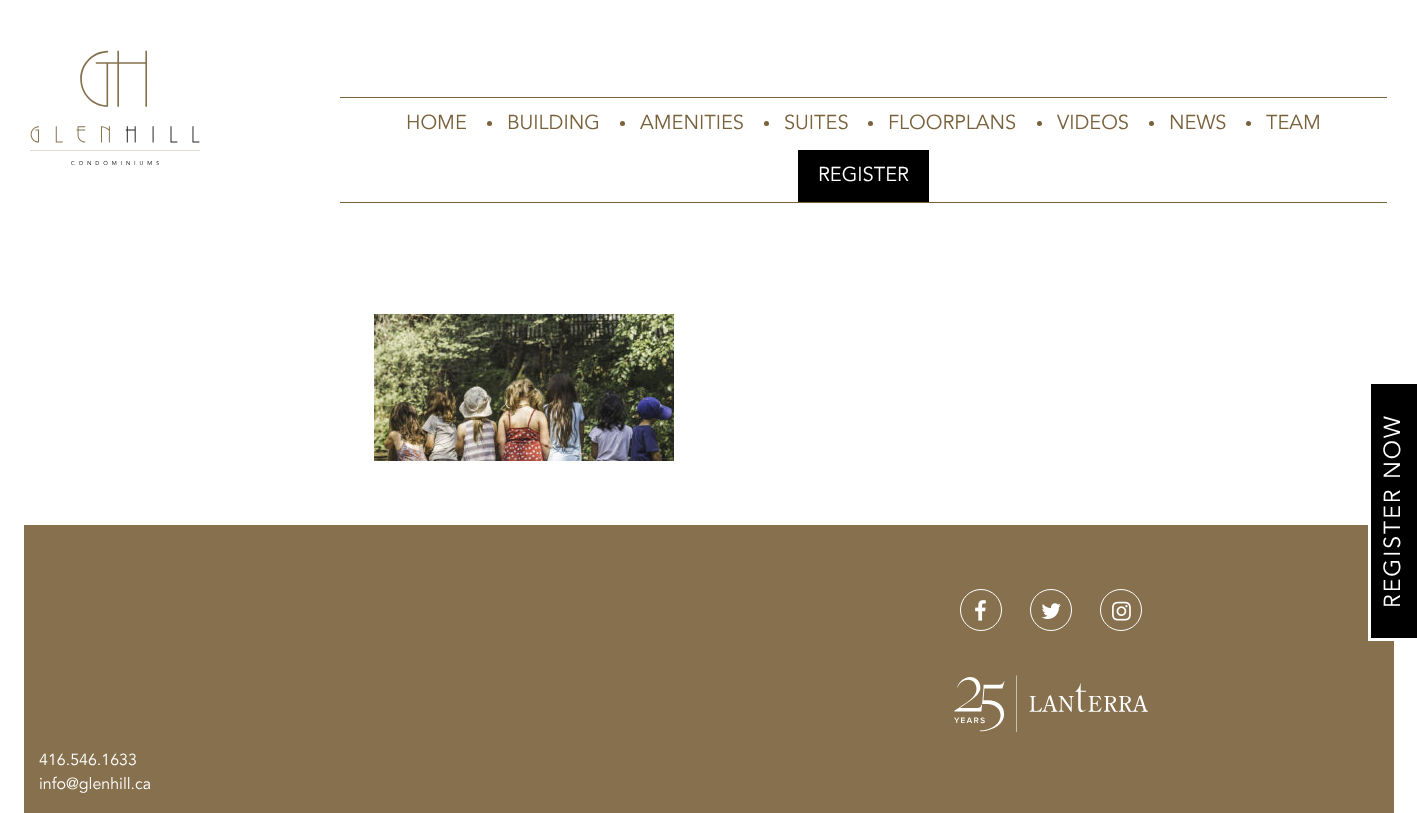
async function draw(canvas) {
	canvas.width = 1417;
	canvas.height = 813;
	const c = canvas.getContext('2d');
	c.miterLimit = 4;
	c.fontKerning = 'normal';
	async function loadImage(src) {
		const img = new Image();
		img.src = src;
		await img.decode();
		return img;
	}

	c.fillStyle = '#fff';
	c.fillRect(0, 0, 1417, 813);
	c.drawImage(await loadImage('img1.png'), 30, 50, 170, 115);
	c.fillStyle = '#79613b';
	c.fillRect(340, 97, 1047, 1);
	c.fillRect(340, 202, 1047, 1);
	c.font = '20px Avenir';
	c.fillText('HOME', 406, 129);
	c.beginPath();
	c.arc(489.5, 123.5, 2.5, 0, 2 * Math.PI);
	c.fill();
	c.fillText('BUILDING', 507, 129);
	c.beginPath();
	c.arc(622.5, 123.5, 2.5, 0, 2 * Math.PI);
	c.fill();
	c.fillText('AMENITIES', 640, 129);
	c.beginPath();
	c.arc(766.5, 123.5, 2.5, 0, 2 * Math.PI);
	c.fill();
	c.fillText('SUITES', 784, 129);
	c.beginPath();
	c.arc(870.5, 123.5, 2.5, 0, 2 * Math.PI);
	c.fill();
	c.fillText('FLOORPLANS', 888, 129);
	c.beginPath();
	c.arc(1039.5, 123.5, 2.5, 0, 2 * Math.PI);
	c.fill();
	c.fillText('VIDEOS', 1057, 129);
	c.beginPath();
	c.arc(1151.5, 123.5, 2.5, 0, 2 * Math.PI);
	c.fill();
	c.fillText('NEWS', 1169, 129);
	c.beginPath();
	c.arc(1248.5, 123.5, 2.5, 0, 2 * Math.PI);
	c.fill();
	c.fillText('TEAM', 1266, 129);
	c.fillStyle = '#000';
	c.fillRect(798, 150, 131, 52);
	c.fillStyle = '#fff';
	c.fillText('REGISTER', 818, 181);
	c.drawImage(await loadImage('img2.png'), 374, 314, 300, 147);
	c.fillStyle = '#86704d';
	c.fillRect(24, 525, 1370, 288);
	c.beginPath();
	c.arc(981, 610, 20.5, 0, 2 * Math.PI);
	c.strokeStyle = '#fff';
	c.stroke();
	c.drawImage(await loadImage('img3.png'), 975, 600, 11, 21);
	c.beginPath();
	c.arc(1051, 610, 20.5, 0, 2 * Math.PI);
	c.stroke();
	c.drawImage(await loadImage('img4.png'), 1041, 603, 20, 16);
	c.beginPath();
	c.arc(1121, 610, 20.5, 0, 2 * Math.PI);
	c.stroke();
	c.drawImage(await loadImage('img5.png'), 1112, 601, 19, 20);
	c.drawImage(await loadImage('img6.png'), 954, 675, 194, 57);
	c.font = '16px Avenir';
	c.fillStyle = '#fff';
	c.fillText('416.546.1633', 39, 765);
	c.fillText('info@glenhill.ca', 39, 789);
	for (const [x, y, w, h, color] of [
		[1371, 384, 46, 254, '#000'],
		[1368, 525, 3, 116, '#fff'],
		[1368, 638, 26, 3, '#fff'],
	]) {
		c.fillStyle = color;
		c.fillRect(x, y, w, h);
	}
	c.letterSpacing = '2px';
	c.font = '23px Avenir';
	c.save();
	c.translate(1400, 608);
	c.rotate(-90 * Math.PI / 180);
	c.fillText('REGISTER NOW', 0, 0);
	c.restore();
}

draw(document.querySelector('canvas'));
